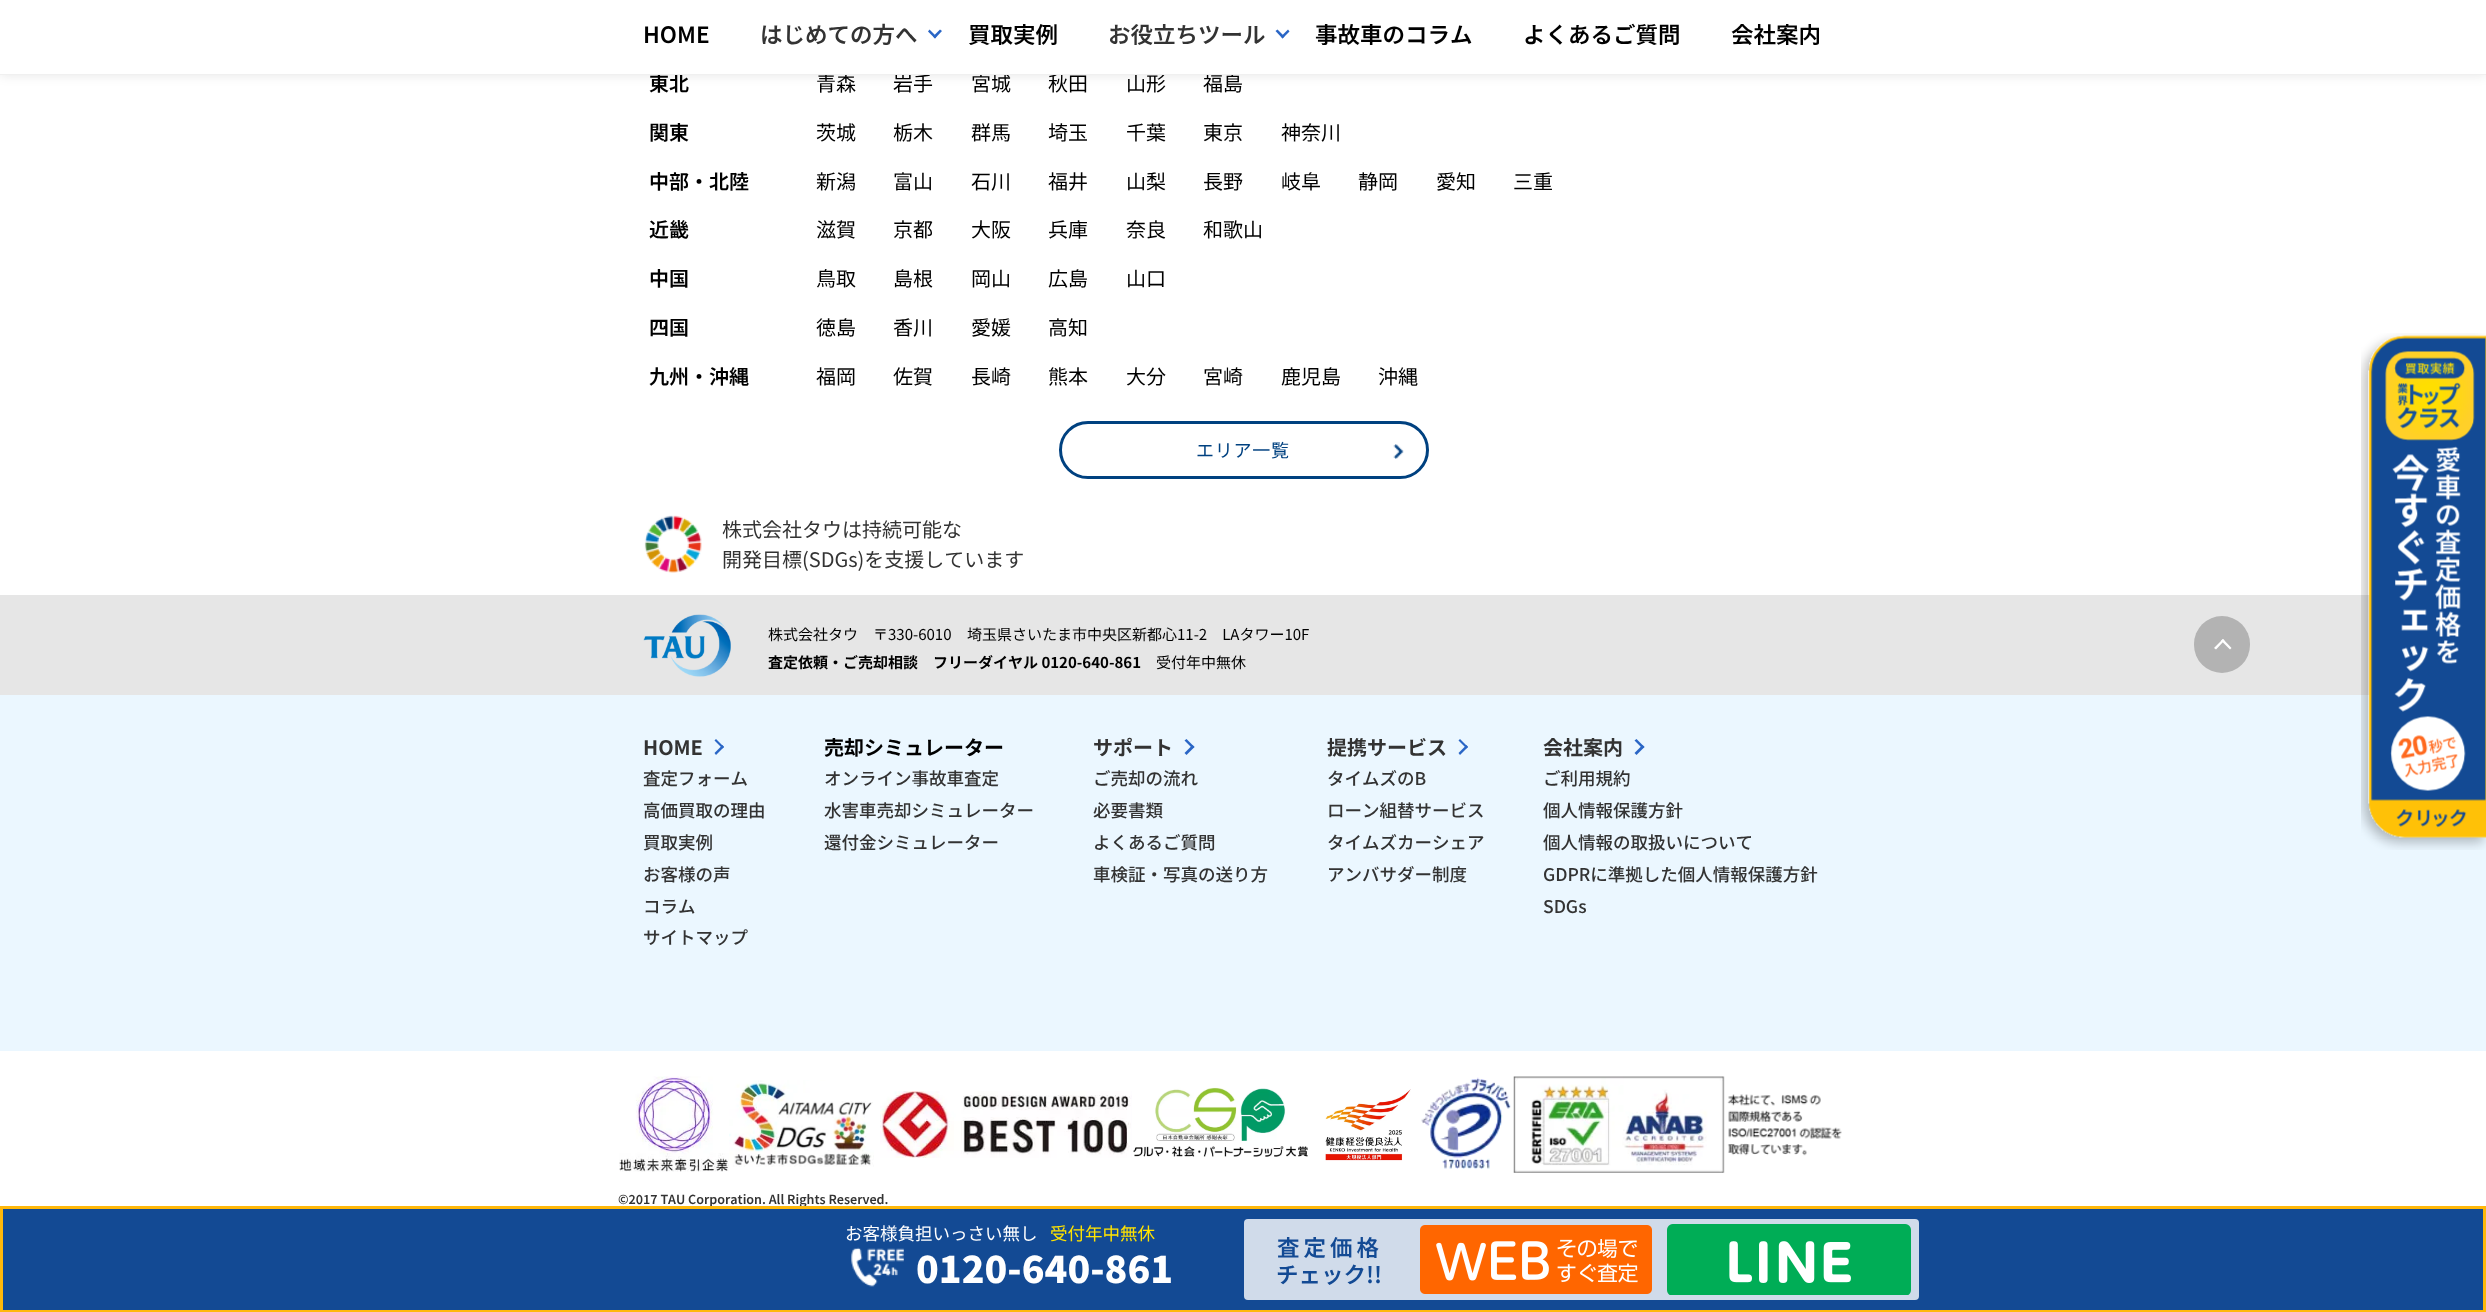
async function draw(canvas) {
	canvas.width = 2486;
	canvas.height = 1312;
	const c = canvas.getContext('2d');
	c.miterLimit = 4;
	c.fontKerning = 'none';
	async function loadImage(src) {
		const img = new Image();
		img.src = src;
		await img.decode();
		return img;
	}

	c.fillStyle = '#fff';
	c.fillRect(0, 0, 2486, 1312);
	c.fillStyle = '#0000001a';
	c.filter = 'blur(6px)';
	c.beginPath();
	c.rect(0, 0, 2486, 75);
	c.fill();
	c.filter = 'none';
	c.fillStyle = '#fff';
	c.fillRect(0, 0, 2486, 74);
	c.font = '600 20px Noto Sans JP';
	c.fillStyle = '#000';
	c.fillText('東北', 649, 91);
	c.font = '20px Noto Sans JP';
	for (const [text, x, y] of [
		['青森', 816, 91],
		['岩手', 893, 91],
		['宮城', 971, 91],
		['秋田', 1048, 91],
		['山形', 1126, 91],
		['福島', 1203, 91],
	]) {
		c.fillText(text, x, y);
	}
	c.fillStyle = '#f0f0f0';
	c.fillRect(0, 74, 2486, 1);
	c.font = '600 22.5px Noto Sans JP';
	c.fillStyle = '#000';
	c.fillText('HOME', 643, 43);
	c.fillStyle = '#333';
	c.fillText('はじめての方へ', 760, 43);
	c.fillStyle = '#2a66c6';
	c.beginPath();
	c.moveTo(942, 31);
	c.lineTo(935, 38.5);
	c.lineTo(933, 36.5);
	c.lineTo(940, 29.5);
	c.closePath();
	c.fill();
	c.beginPath();
	c.moveTo(936.5, 36.5);
	c.lineTo(935, 38.5);
	c.lineTo(928, 31.5);
	c.lineTo(929.5, 29.5);
	c.closePath();
	c.fill();
	c.fillStyle = '#000';
	c.fillText('買取実例', 968, 43);
	c.fillStyle = '#333';
	c.fillText('お役立ちツール', 1108, 43);
	c.fillStyle = '#2a66c6';
	c.beginPath();
	c.moveTo(1289.5, 31.5);
	c.lineTo(1282.5, 38.5);
	c.lineTo(1281, 36.5);
	c.lineTo(1288, 29.5);
	c.closePath();
	c.fill();
	c.beginPath();
	c.moveTo(1284.5, 36.5);
	c.lineTo(1282.5, 38.5);
	c.lineTo(1275.5, 31);
	c.lineTo(1277.5, 29.5);
	c.closePath();
	c.fill();
	c.fillStyle = '#000';
	for (const [text, x, y] of [
		['事故車のコラム', 1315, 43],
		['よくあるご質問', 1523, 43],
		['会社案内', 1731, 43],
	]) {
		c.fillText(text, x, y);
	}
	c.font = '600 20px Noto Sans JP';
	c.fillText('関東', 649, 140);
	c.font = '20px Noto Sans JP';
	for (const [text, x, y] of [
		['茨城', 816, 140],
		['栃木', 893, 140],
		['群馬', 971, 140],
		['埼玉', 1048, 140],
		['千葉', 1126, 140],
		['東京', 1203, 140],
		['神奈川', 1281, 140],
	]) {
		c.fillText(text, x, y);
	}
	c.font = '600 20px Noto Sans JP';
	c.fillText('中部・北陸', 649, 189);
	c.font = '20px Noto Sans JP';
	for (const [text, x, y] of [
		['新潟', 816, 189],
		['富山', 893, 189],
		['石川', 971, 189],
		['福井', 1048, 189],
		['山梨', 1126, 189],
		['長野', 1203, 189],
		['岐阜', 1281, 189],
		['静岡', 1358, 189],
		['愛知', 1436, 189],
		['三重', 1513, 189],
	]) {
		c.fillText(text, x, y);
	}
	c.font = '600 20px Noto Sans JP';
	c.fillText('近畿', 649, 237);
	c.font = '20px Noto Sans JP';
	for (const [text, x, y] of [
		['滋賀', 816, 237],
		['京都', 893, 237],
		['大阪', 971, 237],
		['兵庫', 1048, 237],
		['奈良', 1126, 237],
		['和歌山', 1203, 237],
	]) {
		c.fillText(text, x, y);
	}
	c.font = '600 20px Noto Sans JP';
	c.fillText('中国', 649, 286);
	c.font = '20px Noto Sans JP';
	for (const [text, x, y] of [
		['鳥取', 816, 286],
		['島根', 893, 286],
		['岡山', 971, 286],
		['広島', 1048, 286],
		['山口', 1126, 286],
	]) {
		c.fillText(text, x, y);
	}
	c.font = '600 20px Noto Sans JP';
	c.fillText('四国', 649, 335);
	c.font = '20px Noto Sans JP';
	for (const [text, x, y] of [
		['徳島', 816, 335],
		['香川', 893, 335],
		['愛媛', 971, 335],
		['高知', 1048, 335],
	]) {
		c.fillText(text, x, y);
	}
	c.font = '600 20px Noto Sans JP';
	c.fillText('九州・沖縄', 649, 384);
	c.font = '20px Noto Sans JP';
	for (const [text, x, y] of [
		['福岡', 816, 384],
		['佐賀', 893, 384],
		['長崎', 971, 384],
		['熊本', 1048, 384],
		['大分', 1126, 384],
		['宮崎', 1203, 384],
		['鹿児島', 1281, 384],
		['沖縄', 1378, 384],
	]) {
		c.fillText(text, x, y);
	}
	c.beginPath();
	c.roundRect(1060.5, 422.5, 367, 55, 27.5);
	c.strokeStyle = '#004180';
	c.lineWidth = 3;
	c.stroke();
	c.letterSpacing = '0.75px';
	c.font = '18px Noto Sans JP';
	c.fillStyle = '#004180';
	c.fillText('エリア一覧', 1196, 457);
	c.drawImage(await loadImage('img1.png'), 1393, 444, 11, 15);
	c.drawImage(await loadImage('img2.png'), 644, 515, 58, 58);
	c.letterSpacing = '0px';
	c.font = '20px Noto Sans JP';
	c.fillStyle = '#333';
	c.fillText('株式会社タウは持続可能な', 722, 537);
	c.fillText('開発目標(SDGs)を支援しています', 722, 567);
	c.fillStyle = '#e6e6e6';
	c.fillRect(0, 595, 2370, 100);
	c.fillStyle = '#ebf7ff';
	c.fillRect(0, 695, 2486, 356);
	c.drawImage(await loadImage('img3.png'), 2361, 333, 125, 517);
	c.drawImage(await loadImage('img4.png'), 643, 614, 88, 63);
	c.font = '15px Noto Sans JP';
	c.fillStyle = '#000';
	c.fillText('株式会社タウ　〒330-6010', 768, 640);
	c.fillText('埼玉県さいたま市中央区新都心11-2　LAタワー10F', 967, 640);
	c.font = 'bold 15px Noto Sans JP';
	c.fillText('査定依頼・ご売却相談　フリーダイヤル 0120-640-861', 768, 668);
	c.font = '15px Noto Sans JP';
	c.fillText('受付年中無休', 1156, 668);
	c.fillStyle = '#b3b3b3';
	c.beginPath();
	c.roundRect(2194, 616, 56, 57, 28);
	c.fill();
	c.fillStyle = '#fff';
	c.beginPath();
	c.moveTo(2224.5, 640.5);
	c.lineTo(2216, 649.5);
	c.lineTo(2214, 648);
	c.lineTo(2223, 639);
	c.closePath();
	c.fill();
	c.beginPath();
	c.moveTo(2231.5, 648);
	c.lineTo(2230, 649.5);
	c.lineTo(2221, 640.5);
	c.lineTo(2223, 639);
	c.closePath();
	c.fill();
	c.font = 'bold 20px Noto Sans JP';
	c.fillStyle = '#333';
	c.fillText('HOME', 643, 755);
	c.fillStyle = '#2a66c6';
	c.beginPath();
	c.moveTo(714.5, 740.5);
	c.lineTo(716, 739);
	c.lineTo(724, 747);
	c.lineTo(722.5, 748.5);
	c.closePath();
	c.fill();
	c.beginPath();
	c.moveTo(714.5, 753);
	c.lineTo(722.5, 745);
	c.lineTo(724, 747);
	c.lineTo(716, 755);
	c.closePath();
	c.fill();
	c.font = '500 17.5px Noto Sans JP';
	c.fillStyle = '#333';
	for (const [text, x, y] of [
		['査定フォーム', 643, 785],
		['高価買取の理由', 643, 817],
		['買取実例', 643, 849],
		['お客様の声', 643, 881],
		['コラム', 643, 913],
		['サイトマップ', 643, 944],
	]) {
		c.fillText(text, x, y);
	}
	c.font = 'bold 20px Noto Sans JP';
	c.fillStyle = '#000';
	c.fillText('売却シミュレーター', 824, 755);
	c.font = '500 17.5px Noto Sans JP';
	c.fillStyle = '#333';
	for (const [text, x, y] of [
		['オンライン事故車査定', 824, 785],
		['水害車売却シミュレーター', 824, 817],
		['還付金シミュレーター', 824, 849],
	]) {
		c.fillText(text, x, y);
	}
	c.font = 'bold 20px Noto Sans JP';
	c.fillText('サポート', 1093, 755);
	c.fillStyle = '#2a66c6';
	c.beginPath();
	c.moveTo(1184.5, 740.5);
	c.lineTo(1186.5, 739);
	c.lineTo(1194.5, 747);
	c.lineTo(1192.5, 748.5);
	c.closePath();
	c.fill();
	c.beginPath();
	c.moveTo(1184.5, 753);
	c.lineTo(1192.5, 745);
	c.lineTo(1194.5, 747);
	c.lineTo(1186.5, 755);
	c.closePath();
	c.fill();
	c.font = '500 17.5px Noto Sans JP';
	c.fillStyle = '#333';
	for (const [text, x, y] of [
		['ご売却の流れ', 1093, 785],
		['必要書類', 1093, 817],
		['よくあるご質問', 1093, 849],
		['車検証・写真の送り方', 1093, 881],
	]) {
		c.fillText(text, x, y);
	}
	c.font = 'bold 20px Noto Sans JP';
	c.fillText('提携サービス', 1327, 755);
	c.fillStyle = '#2a66c6';
	c.beginPath();
	c.moveTo(1458.5, 740.5);
	c.lineTo(1460, 739);
	c.lineTo(1468, 747);
	c.lineTo(1466.5, 748.5);
	c.closePath();
	c.fill();
	c.beginPath();
	c.moveTo(1458.5, 753);
	c.lineTo(1466.5, 745);
	c.lineTo(1468, 747);
	c.lineTo(1460, 755);
	c.closePath();
	c.fill();
	c.font = '500 17.5px Noto Sans JP';
	c.fillStyle = '#333';
	for (const [text, x, y] of [
		['タイムズのB', 1327, 785],
		['ローン組替サービス', 1327, 817],
		['タイムズカーシェア', 1327, 849],
		['アンバサダー制度', 1327, 881],
	]) {
		c.fillText(text, x, y);
	}
	c.font = 'bold 20px Noto Sans JP';
	c.fillText('会社案内', 1543, 755);
	c.fillStyle = '#2a66c6';
	c.beginPath();
	c.moveTo(1634.5, 740.5);
	c.lineTo(1636.5, 739);
	c.lineTo(1644.5, 747);
	c.lineTo(1642.5, 748.5);
	c.closePath();
	c.fill();
	c.beginPath();
	c.moveTo(1634.5, 753);
	c.lineTo(1642.5, 745);
	c.lineTo(1644.5, 747);
	c.lineTo(1636.5, 755);
	c.closePath();
	c.fill();
	c.font = '500 17.5px Noto Sans JP';
	c.fillStyle = '#333';
	for (const [text, x, y] of [
		['ご利用規約', 1543, 785],
		['個人情報保護方針', 1543, 817],
		['個人情報の取扱いについて', 1543, 849],
		['GDPRに準拠した個人情報保護方針', 1543, 881],
		['SDGs', 1543, 913],
	]) {
		c.fillText(text, x, y);
	}
	c.drawImage(await loadImage('img5.png'), 619, 1076, 110, 96);
	c.drawImage(await loadImage('img6.png'), 729, 1080, 145, 87);
	c.drawImage(await loadImage('img7.png'), 880, 1091, 252, 67);
	c.drawImage(await loadImage('img8.png'), 1133, 1087, 175, 70);
	c.drawImage(await loadImage('img9.png'), 1325, 1089, 86, 72);
	c.drawImage(await loadImage('img10.png'), 1421, 1077, 90, 92);
	c.drawImage(await loadImage('img11.png'), 1513, 1076, 329, 97);
	c.font = '600 12.5px Noto Sans JP';
	c.fillText('©2017 TAU Corporation. All Rights Reserved.', 618, 1204);
	c.fillStyle = '#134a94';
	c.beginPath();
	c.rect(1.5, 1207.5, 2483, 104);
	c.fill();
	c.strokeStyle = '#ffb80a';
	c.stroke();
	c.font = '17.5px Noto Sans JP';
	c.fillStyle = '#fff';
	c.fillText('お客様負担いっさい無し', 845, 1240);
	c.fillStyle = '#ffe300';
	c.fillText('受付年中無休', 1050, 1240);
	c.drawImage(await loadImage('img12.png'), 851, 1247, 53, 40);
	c.font = '900 37.5px Noto Sans JP';
	c.fillStyle = '#fff';
	c.fillText('0120-640-861', 916, 1283);
	c.fillStyle = '#d0dbea';
	c.beginPath();
	c.roundRect(1244, 1219, 675, 81, 4);
	c.fill();
	c.letterSpacing = '4px';
	c.font = '600 22.5px Noto Sans JP';
	c.fillStyle = '#134a94';
	c.fillText('査定価格', 1277, 1256);
	c.letterSpacing = '0px';
	c.fillText('チェック!!', 1276, 1283);
	c.drawImage(await loadImage('img13.png'), 1420, 1225, 232, 69);
	c.drawImage(await loadImage('img14.png'), 1667, 1224, 244, 71);
}

draw(document.querySelector('canvas'));
